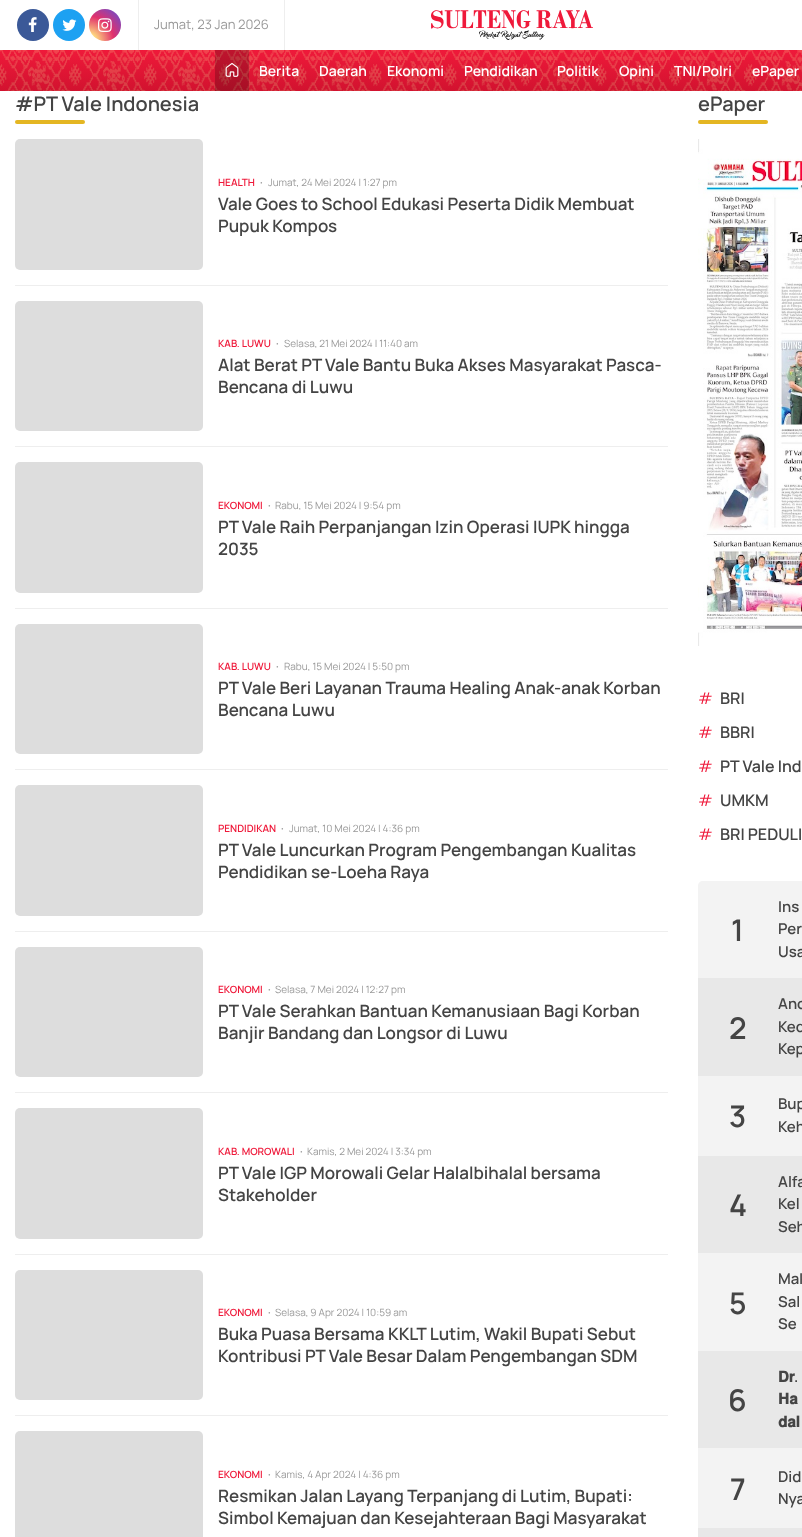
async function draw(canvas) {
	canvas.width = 802;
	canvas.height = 1537;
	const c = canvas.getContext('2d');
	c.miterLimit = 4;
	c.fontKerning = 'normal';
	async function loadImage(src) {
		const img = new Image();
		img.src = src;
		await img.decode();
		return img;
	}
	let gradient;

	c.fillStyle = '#fff';
	c.fillRect(0, 0, 802, 1537);
	c.fillStyle = '#eee';
	c.fillRect(138, 0, 1, 50);
	c.fillStyle = '#3b5998';
	c.beginPath();
	c.arc(33, 25, 16, 0, 2 * Math.PI);
	c.fill();
	c.drawImage(await loadImage('img1.png'), 28, 17, 9, 15);
	c.fillStyle = '#1da1f2';
	c.beginPath();
	c.arc(69, 25, 16, 0, 2 * Math.PI);
	c.fill();
	c.drawImage(await loadImage('img2.png'), 62, 19, 15, 12);
	gradient = c.createRadialGradient(89, 41, 0, 89, 41, 45);
	gradient.addColorStop(0.15, '#ffdc80');
	gradient.addColorStop(0.55, '#e1306c');
	gradient.addColorStop(1, '#5851db');
	c.fillStyle = gradient;
	c.beginPath();
	c.arc(105, 25, 16, 0, 2 * Math.PI);
	c.fill();
	c.drawImage(await loadImage('img3.png'), 98, 18, 14, 14);
	c.fillStyle = '#eee';
	c.fillRect(284, 0, 1, 50);
	c.font = '13px Manrope';
	c.fillStyle = '#999';
	c.fillText('Jumat, 23 Jan 2026', 154, 29);
	c.drawImage(await loadImage('img4.png'), 431, 10, 162, 30);
	c.drawImage(await loadImage('img5.png'), 0, 50, 802, 41);
	c.fillStyle = '#00000033';
	c.fillRect(215, 50, 34, 41);
	c.drawImage(await loadImage('img6.png'), 225, 62, 14, 15);
	c.font = '600 14px Manrope';
	c.fillStyle = '#fff';
	for (const [text, x, y] of [
		['Berita', 259, 76],
		['Daerah', 319, 76],
		['Ekonomi', 387, 76],
		['Pendidikan', 464, 76],
		['Politik', 557, 76],
		['Opini', 619, 76],
		['TNI/Polri', 674, 76],
		['ePaper', 752, 76],
	]) {
		c.fillText(text, x, y);
	}
	c.font = '600 20px Manrope';
	c.fillStyle = '#444';
	c.fillText('#PT Vale Indonesia', 15, 111);
	c.fillStyle = '#e4b622';
	c.beginPath();
	c.roundRect(15, 120, 70, 4, 2);
	c.fill();
	c.fillStyle = '#eee';
	c.fillRect(15, 285, 653, 1);
	c.fillStyle = '#ddd';
	c.beginPath();
	c.roundRect(15, 139, 188, 131, 5);
	c.fill();
	c.font = '600 10px Manrope';
	c.fillStyle = '#ef193a';
	c.fillText('HEALTH', 218, 186);
	c.font = 'bold 10px Manrope';
	c.fillStyle = '#999';
	c.fillText('·', 260, 186);
	c.font = '10px Manrope';
	c.fillText('Jumat, 24 Mei 2024 | 1:27 pm', 268, 186);
	c.font = '600 17px Manrope';
	c.fillStyle = '#444';
	c.fillText('Vale Goes to School Edukasi Peserta Didik Membuat', 218, 210);
	c.fillText('Pupuk Kompos', 218, 232);
	c.fillStyle = '#eee';
	c.fillRect(15, 446, 653, 1);
	c.fillStyle = '#ddd';
	c.beginPath();
	c.roundRect(15, 301, 188, 130, 5);
	c.fill();
	c.font = '600 10px Manrope';
	c.fillStyle = '#ef193a';
	c.fillText('KAB. LUWU', 218, 347);
	c.font = 'bold 10px Manrope';
	c.fillStyle = '#999';
	c.fillText('·', 276, 347);
	c.font = '10px Manrope';
	c.fillText('Selasa, 21 Mei 2024 | 11:40 am', 284, 347);
	c.font = '600 17px Manrope';
	c.fillStyle = '#444';
	c.fillText('Alat Berat PT Vale Bantu Buka Akses Masyarakat Pasca-', 218, 371);
	c.fillText('Bencana di Luwu', 218, 393);
	c.fillStyle = '#eee';
	c.fillRect(15, 608, 653, 1);
	c.fillStyle = '#ddd';
	c.beginPath();
	c.roundRect(15, 462, 188, 131, 5);
	c.fill();
	c.font = '600 10px Manrope';
	c.fillStyle = '#ef193a';
	c.fillText('EKONOMI', 218, 509);
	c.font = 'bold 10px Manrope';
	c.fillStyle = '#999';
	c.fillText('·', 268, 509);
	c.font = '10px Manrope';
	c.fillText('Rabu, 15 Mei 2024 | 9:54 pm', 275, 509);
	c.font = '600 17px Manrope';
	c.fillStyle = '#444';
	c.fillText('PT Vale Raih Perpanjangan Izin Operasi IUPK hingga', 218, 533);
	c.fillText('2035', 218, 555);
	c.fillStyle = '#eee';
	c.fillRect(15, 769, 653, 1);
	c.fillStyle = '#ddd';
	c.beginPath();
	c.roundRect(15, 624, 188, 130, 5);
	c.fill();
	c.font = '600 10px Manrope';
	c.fillStyle = '#ef193a';
	c.fillText('KAB. LUWU', 218, 670);
	c.font = 'bold 10px Manrope';
	c.fillStyle = '#999';
	c.fillText('·', 276, 670);
	c.font = '10px Manrope';
	c.fillText('Rabu, 15 Mei 2024 | 5:50 pm', 284, 670);
	c.font = '600 17px Manrope';
	c.fillStyle = '#444';
	c.fillText('PT Vale Beri Layanan Trauma Healing Anak-anak Korban', 218, 694);
	c.fillText('Bencana Luwu', 218, 716);
	c.fillStyle = '#eee';
	c.fillRect(15, 931, 653, 1);
	c.fillStyle = '#ddd';
	c.beginPath();
	c.roundRect(15, 785, 188, 131, 5);
	c.fill();
	c.font = '600 10px Manrope';
	c.fillStyle = '#ef193a';
	c.fillText('PENDIDIKAN', 218, 832);
	c.font = 'bold 10px Manrope';
	c.fillStyle = '#999';
	c.fillText('·', 281, 832);
	c.font = '10px Manrope';
	c.fillText('Jumat, 10 Mei 2024 | 4:36 pm', 289, 832);
	c.font = '600 17px Manrope';
	c.fillStyle = '#444';
	c.fillText('PT Vale Luncurkan Program Pengembangan Kualitas', 218, 856);
	c.fillText('Pendidikan se-Loeha Raya', 218, 878);
	c.fillStyle = '#eee';
	c.fillRect(15, 1092, 653, 1);
	c.fillStyle = '#ddd';
	c.beginPath();
	c.roundRect(15, 947, 188, 130, 5);
	c.fill();
	c.font = '600 10px Manrope';
	c.fillStyle = '#ef193a';
	c.fillText('EKONOMI', 218, 993);
	c.font = 'bold 10px Manrope';
	c.fillStyle = '#999';
	c.fillText('·', 268, 993);
	c.font = '10px Manrope';
	c.fillText('Selasa, 7 Mei 2024 | 12:27 pm', 275, 993);
	c.font = '600 17px Manrope';
	c.fillStyle = '#444';
	c.fillText('PT Vale Serahkan Bantuan Kemanusiaan Bagi Korban', 218, 1017);
	c.fillText('Banjir Bandang dan Longsor di Luwu', 218, 1039);
	c.fillStyle = '#eee';
	c.fillRect(15, 1254, 653, 1);
	c.fillStyle = '#ddd';
	c.beginPath();
	c.roundRect(15, 1108, 188, 131, 5);
	c.fill();
	c.font = '600 10px Manrope';
	c.fillStyle = '#ef193a';
	c.fillText('KAB. MOROWALI', 218, 1155);
	c.font = 'bold 10px Manrope';
	c.fillStyle = '#999';
	c.fillText('·', 300, 1155);
	c.font = '10px Manrope';
	c.fillText('Kamis, 2 Mei 2024 | 3:34 pm', 307, 1155);
	c.font = '600 17px Manrope';
	c.fillStyle = '#444';
	c.fillText('PT Vale IGP Morowali Gelar Halalbihalal bersama', 218, 1179);
	c.fillText('Stakeholder', 218, 1201);
	c.fillStyle = '#eee';
	c.fillRect(15, 1415, 653, 1);
	c.fillStyle = '#ddd';
	c.beginPath();
	c.roundRect(15, 1270, 188, 130, 5);
	c.fill();
	c.font = '600 10px Manrope';
	c.fillStyle = '#ef193a';
	c.fillText('EKONOMI', 218, 1316);
	c.font = 'bold 10px Manrope';
	c.fillStyle = '#999';
	c.fillText('·', 268, 1316);
	c.font = '10px Manrope';
	c.fillText('Selasa, 9 Apr 2024 | 10:59 am', 275, 1316);
	c.font = '600 17px Manrope';
	c.fillStyle = '#444';
	c.fillText('Buka Puasa Bersama KKLT Lutim, Wakil Bupati Sebut', 218, 1340);
	c.fillText('Kontribusi PT Vale Besar Dalam Pengembangan SDM', 218, 1362);
	c.fillStyle = '#ddd';
	c.beginPath();
	c.roundRect(15, 1431, 188, 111, 5);
	c.fill();
	c.font = '600 10px Manrope';
	c.fillStyle = '#ef193a';
	c.fillText('EKONOMI', 218, 1478);
	c.font = 'bold 10px Manrope';
	c.fillStyle = '#999';
	c.fillText('·', 268, 1478);
	c.font = '10px Manrope';
	c.fillText('Kamis, 4 Apr 2024 | 4:36 pm', 275, 1478);
	c.font = '600 17px Manrope';
	c.fillStyle = '#444';
	c.fillText('Resmikan Jalan Layang Terpanjang di Lutim, Bupati:', 218, 1502);
	c.fillText('Simbol Kemajuan dan Kesejahteraan Bagi Masyarakat', 218, 1524);
	c.font = '600 20px Manrope';
	c.fillText('ePaper', 698, 111);
	c.fillStyle = '#e4b622';
	c.beginPath();
	c.roundRect(698, 120, 70, 4, 2);
	c.fill();
	c.drawImage(await loadImage('img7.png'), 698, 139, 104, 507);
	c.font = '16px Manrope';
	c.fillStyle = '#ef193a';
	c.fillText('#', 698, 704);
	c.font = '600 16px Manrope';
	c.fillStyle = '#444';
	c.fillText('BRI', 720, 704);
	c.font = '16px Manrope';
	c.fillStyle = '#ef193a';
	c.fillText('#', 698, 738);
	c.font = '600 16px Manrope';
	c.fillStyle = '#444';
	c.fillText('BBRI', 720, 738);
	c.font = '16px Manrope';
	c.fillStyle = '#ef193a';
	c.fillText('#', 698, 772);
	c.font = '600 16px Manrope';
	c.fillStyle = '#444';
	c.fillText('PT Vale Ind', 720, 772);
	c.font = '16px Manrope';
	c.fillStyle = '#ef193a';
	c.fillText('#', 698, 806);
	c.font = '600 16px Manrope';
	c.fillStyle = '#444';
	c.fillText('UMKM', 720, 806);
	c.font = '16px Manrope';
	c.fillStyle = '#ef193a';
	c.fillText('#', 698, 840);
	c.font = '600 16px Manrope';
	c.fillStyle = '#444';
	c.fillText('BRI PEDULI', 720, 840);
	c.fillStyle = '#f3f3f3';
	c.beginPath();
	c.moveTo(703, 881);
	c.lineTo(802, 881);
	c.bezierCurveTo(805, 881, 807, 883, 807, 886);
	c.lineTo(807, 978);
	c.lineTo(698, 978);
	c.lineTo(698, 886);
	c.bezierCurveTo(698, 883, 700, 881, 703, 881);
	c.closePath();
	c.fill();
	c.font = '600 30px Manrope';
	c.fillStyle = '#444';
	c.fillText('1', 731, 941);
	c.font = '600 15px Manrope';
	for (const [text, x, y] of [
		['Ins', 778, 912],
		['Per', 778, 934],
		['Usa', 778, 957],
	]) {
		c.fillText(text, x, y);
	}
	c.fillStyle = '#e8e8e8';
	c.fillRect(698, 978, 104, 98);
	c.font = '600 30px Manrope';
	c.fillStyle = '#444';
	c.fillText('2', 729, 1039);
	c.font = '600 15px Manrope';
	for (const [text, x, y] of [
		['Ano', 778, 1009],
		['Ked', 778, 1032],
		['Kep', 778, 1054],
	]) {
		c.fillText(text, x, y);
	}
	c.fillStyle = '#f3f3f3';
	c.fillRect(698, 1076, 104, 80);
	c.font = '600 30px Manrope';
	c.fillStyle = '#444';
	c.fillText('3', 729, 1127);
	c.font = '600 15px Manrope';
	c.fillText('Bup', 778, 1109);
	c.fillText('Keh', 778, 1132);
	c.fillStyle = '#e8e8e8';
	c.fillRect(698, 1156, 104, 97);
	c.font = '600 30px Manrope';
	c.fillStyle = '#444';
	c.fillText('4', 729, 1216);
	c.font = '600 15px Manrope';
	for (const [text, x, y] of [
		['Alfa', 778, 1187],
		['Kel', 778, 1209],
		['Seh', 778, 1232],
	]) {
		c.fillText(text, x, y);
	}
	c.fillStyle = '#f3f3f3';
	c.fillRect(698, 1253, 104, 98);
	c.font = '600 30px Manrope';
	c.fillStyle = '#444';
	c.fillText('5', 729, 1314);
	c.font = '600 15px Manrope';
	for (const [text, x, y] of [
		['Mak', 778, 1284],
		['Sal', 778, 1307],
		['Se', 778, 1329],
	]) {
		c.fillText(text, x, y);
	}
	c.fillStyle = '#e8e8e8';
	c.fillRect(698, 1351, 104, 97);
	c.font = '600 30px Manrope';
	c.fillStyle = '#444';
	c.fillText('6', 728, 1411);
	c.font = 'bold 15px FreeSans';
	c.fillText('𝐃𝐫', 778, 1382);
	c.font = '600 15px Manrope';
	c.fillText('.', 794, 1382);
	c.wordSpacing = '-1px';
	c.font = 'bold 15px FreeSans';
	c.fillText('𝐇𝐚', 778, 1404);
	c.fillText('𝐝𝐚𝐥', 778, 1427);
	c.fillStyle = '#f3f3f3';
	c.fillRect(698, 1448, 104, 80);
	c.wordSpacing = '0px';
	c.font = '600 30px Manrope';
	c.fillStyle = '#444';
	c.fillText('7', 730, 1500);
	c.font = '600 15px Manrope';
	c.fillText('Did', 778, 1482);
	c.fillText('Nya', 778, 1504);
	c.fillStyle = '#e8e8e8';
	c.fillRect(698, 1528, 104, 9);
}

draw(document.querySelector('canvas'));
